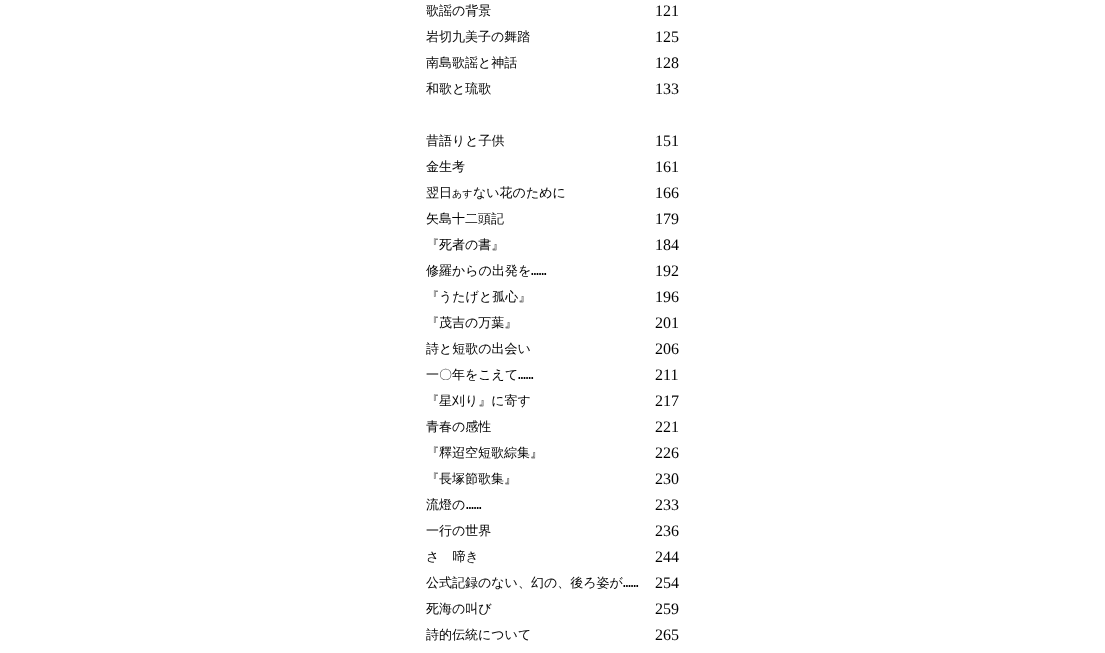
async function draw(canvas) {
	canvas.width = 1105;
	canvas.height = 653;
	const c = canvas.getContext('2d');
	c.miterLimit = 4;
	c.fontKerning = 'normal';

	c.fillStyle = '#fff';
	c.fillRect(0, 0, 1105, 653);
	c.font = '500 13px WenQuanYi Zen Hei';
	c.fillStyle = '#000';
	c.fillText('歌謡の背景', 426, 15);
	c.font = '16px Liberation Serif';
	c.fillText('121', 655, 16);
	c.font = '500 13px WenQuanYi Zen Hei';
	c.fillText('岩切九美子の舞踏', 426, 41);
	c.font = '16px Liberation Serif';
	c.fillText('125', 655, 42);
	c.font = '500 13px WenQuanYi Zen Hei';
	c.fillText('南島歌謡と神話', 426, 67);
	c.font = '16px Liberation Serif';
	c.fillText('128', 655, 68);
	c.font = '500 13px WenQuanYi Zen Hei';
	c.fillText('和歌と琉歌', 426, 93);
	c.font = '16px Liberation Serif';
	c.fillText('133', 655, 94);
	c.font = '500 13px WenQuanYi Zen Hei';
	c.fillText('昔語りと子供', 426, 145);
	c.font = '16px Liberation Serif';
	c.fillText('151', 655, 146);
	c.font = '500 13px WenQuanYi Zen Hei';
	c.fillText('金生考', 426, 171);
	c.font = '16px Liberation Serif';
	c.fillText('161', 655, 172);
	c.font = '500 13px WenQuanYi Zen Hei';
	c.fillText('翌日', 426, 197);
	c.font = '500 10px WenQuanYi Zen Hei';
	c.fillText('あす', 452, 197);
	c.font = '500 13px WenQuanYi Zen Hei';
	c.fillText('ない花のために', 473, 197);
	c.font = '16px Liberation Serif';
	c.fillText('166', 655, 198);
	c.font = '500 13px WenQuanYi Zen Hei';
	c.fillText('矢島十二頭記', 426, 223);
	c.font = '16px Liberation Serif';
	c.fillText('179', 655, 224);
	c.font = '500 13px WenQuanYi Zen Hei';
	c.fillText('『死者の書』', 426, 249);
	c.font = '16px Liberation Serif';
	c.fillText('184', 655, 250);
	c.font = '500 13px WenQuanYi Zen Hei';
	c.fillText('修羅からの出発を', 426, 275);
	c.font = '13px DejaVu Sans Mono';
	c.fillText('……', 531, 275);
	c.font = '16px Liberation Serif';
	c.fillText('192', 655, 276);
	c.font = '500 13px WenQuanYi Zen Hei';
	c.fillText('『うたげと孤心』', 426, 301);
	c.font = '16px Liberation Serif';
	c.fillText('196', 655, 302);
	c.font = '500 13px WenQuanYi Zen Hei';
	c.fillText('『茂吉の万葉』', 426, 327);
	c.font = '16px Liberation Serif';
	c.fillText('201', 655, 328);
	c.font = '500 13px WenQuanYi Zen Hei';
	c.fillText('詩と短歌の出会い', 426, 353);
	c.font = '16px Liberation Serif';
	c.fillText('206', 655, 354);
	c.font = '500 13px WenQuanYi Zen Hei';
	c.fillText('一〇年をこえて', 426, 379);
	c.font = '13px DejaVu Sans Mono';
	c.fillText('……', 518, 379);
	c.font = '16px Liberation Serif';
	c.fillText('211', 655, 380);
	c.font = '500 13px WenQuanYi Zen Hei';
	c.fillText('『星刈り』に寄す', 426, 405);
	c.font = '16px Liberation Serif';
	c.fillText('217', 655, 406);
	c.font = '500 13px WenQuanYi Zen Hei';
	c.fillText('青春の感性', 426, 431);
	c.font = '16px Liberation Serif';
	c.fillText('221', 655, 432);
	c.font = '500 13px WenQuanYi Zen Hei';
	c.fillText('『釋迢空短歌綜集』', 426, 457);
	c.font = '16px Liberation Serif';
	c.fillText('226', 655, 458);
	c.font = '500 13px WenQuanYi Zen Hei';
	c.fillText('『長塚節歌集』', 426, 483);
	c.font = '16px Liberation Serif';
	c.fillText('230', 655, 484);
	c.font = '500 13px WenQuanYi Zen Hei';
	c.fillText('流燈の', 426, 509);
	c.font = '13px DejaVu Sans Mono';
	c.fillText('……', 466, 509);
	c.font = '16px Liberation Serif';
	c.fillText('233', 655, 510);
	c.font = '500 13px WenQuanYi Zen Hei';
	c.fillText('一行の世界', 426, 535);
	c.font = '16px Liberation Serif';
	c.fillText('236', 655, 536);
	c.font = '500 13px WenQuanYi Zen Hei';
	c.fillText('さゝ啼き', 426, 561);
	c.font = '16px Liberation Serif';
	c.fillText('244', 655, 562);
	c.font = '500 13px WenQuanYi Zen Hei';
	c.fillText('公式記録のない、幻の、後ろ姿が', 426, 587);
	c.font = '13px DejaVu Sans Mono';
	c.fillText('……', 623, 587);
	c.font = '16px Liberation Serif';
	c.fillText('254', 655, 588);
	c.font = '500 13px WenQuanYi Zen Hei';
	c.fillText('死海の叫び', 426, 613);
	c.font = '16px Liberation Serif';
	c.fillText('259', 655, 614);
	c.font = '500 13px WenQuanYi Zen Hei';
	c.fillText('詩的伝統について', 426, 639);
	c.font = '16px Liberation Serif';
	c.fillText('265', 655, 640);
}

draw(document.querySelector('canvas'));
